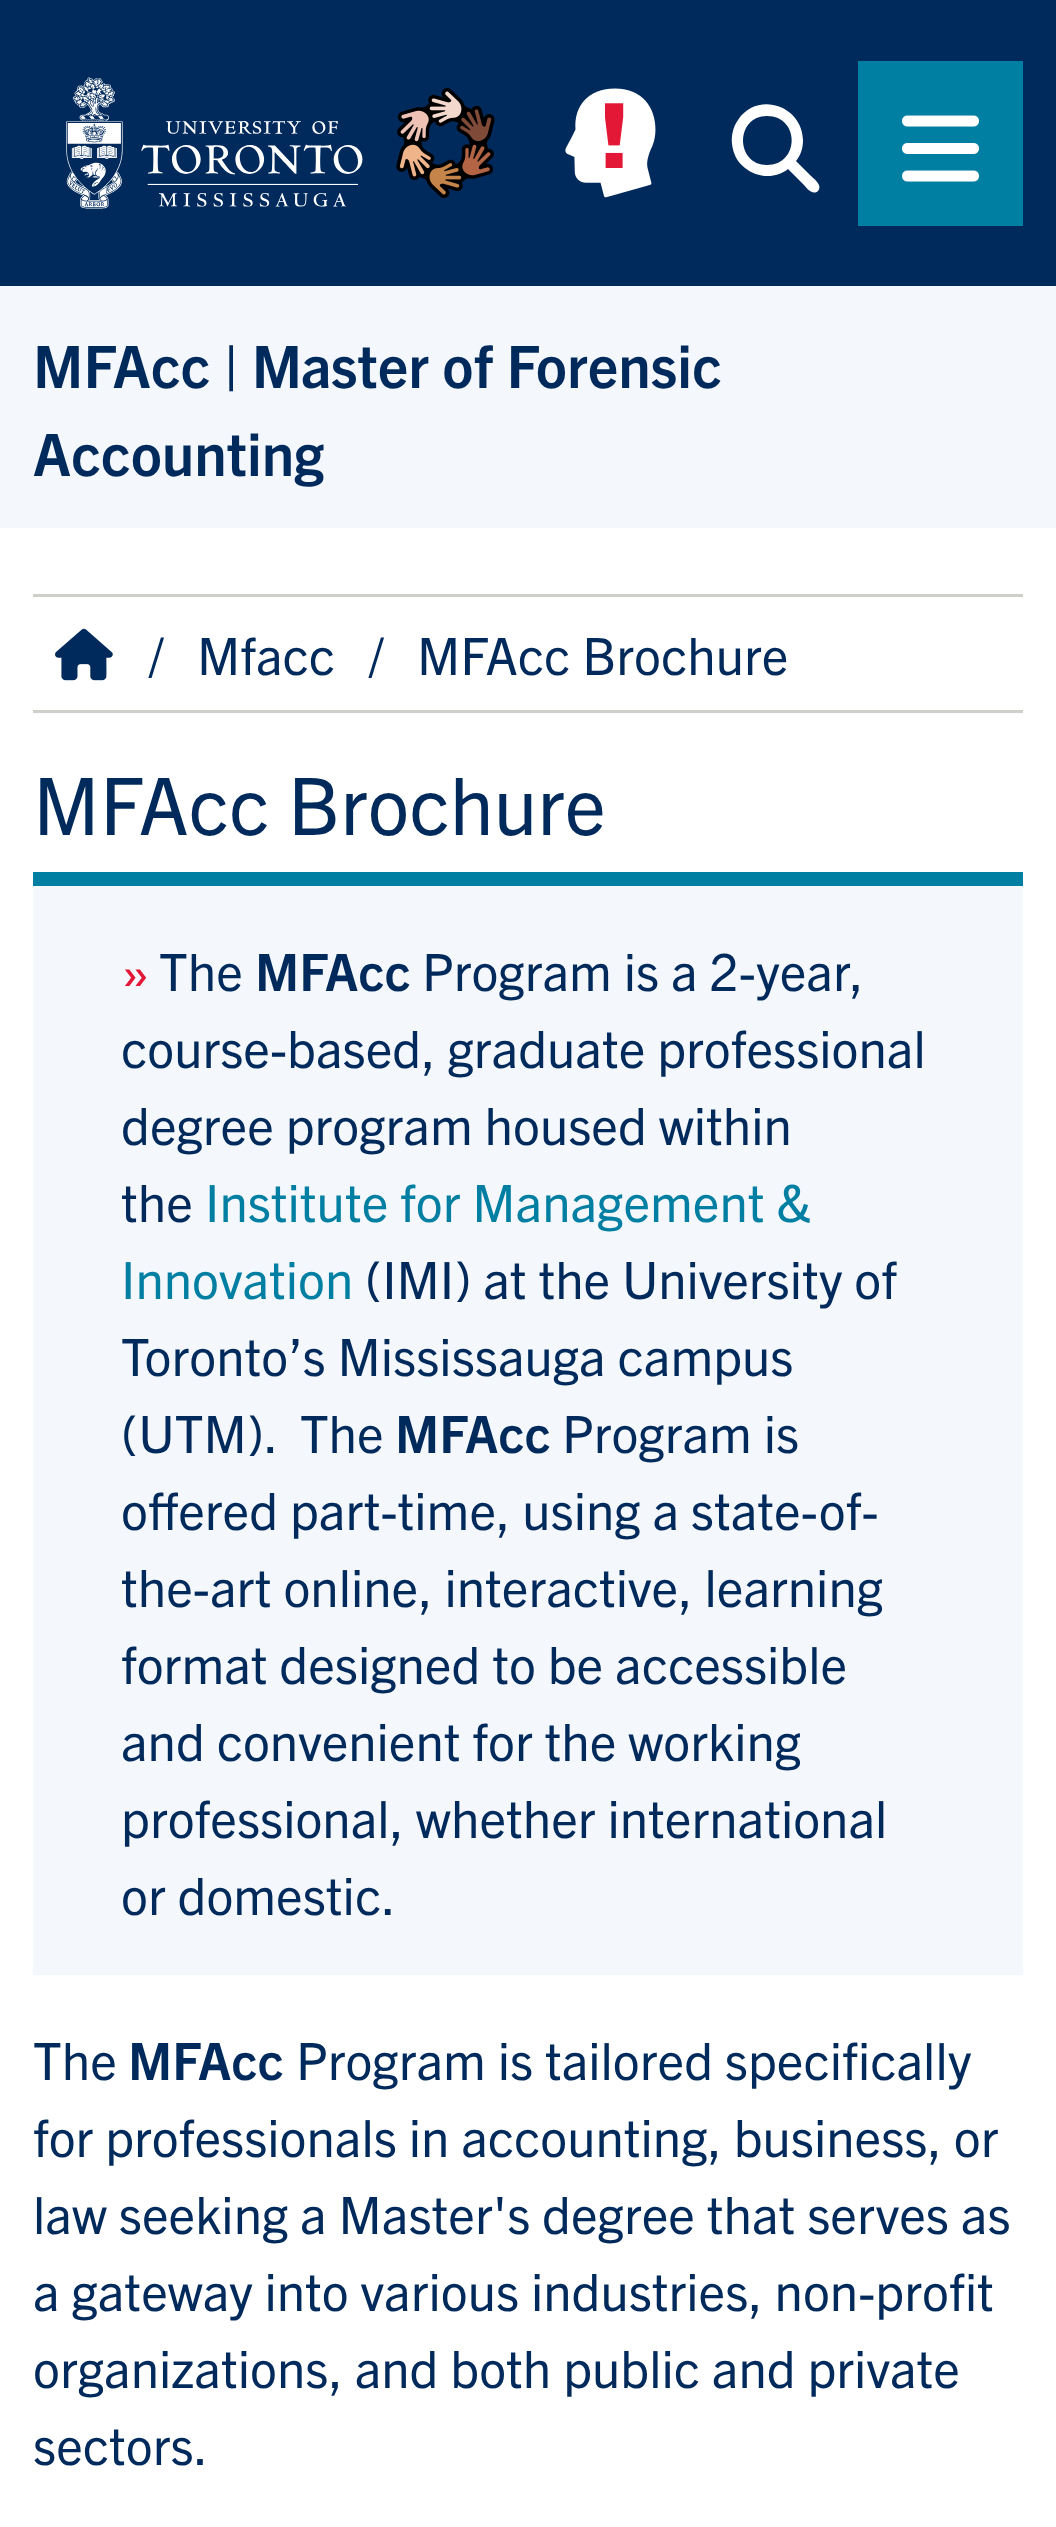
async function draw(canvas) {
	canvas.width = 1056;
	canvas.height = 2527;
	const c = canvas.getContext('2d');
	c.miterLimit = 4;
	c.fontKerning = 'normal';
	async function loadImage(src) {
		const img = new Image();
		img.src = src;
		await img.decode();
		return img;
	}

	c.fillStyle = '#fff';
	c.fillRect(0, 0, 1056, 2527);
	c.fillStyle = '#002a5c';
	c.fillRect(0, 0, 1056, 286);
	c.drawImage(await loadImage('img1.png'), 66, 77, 297, 132);
	c.drawImage(await loadImage('img2.png'), 396, 88, 99, 110);
	c.drawImage(await loadImage('img3.png'), 565, 88, 91, 110);
	c.fillStyle = '#fff';
	c.beginPath();
	c.moveTo(803, 140);
	c.bezierCurveTo(803, 148, 801, 155, 796, 161);
	c.lineTo(811, 176);
	c.bezierCurveTo(814, 179, 823, 185, 818, 191);
	c.bezierCurveTo(812, 196, 806, 187, 803, 184);
	c.lineTo(788, 169);
	c.bezierCurveTo(776, 179, 757, 178, 745, 168);
	c.bezierCurveTo(737, 162, 733, 153, 732, 144);
	c.bezierCurveTo(731, 136, 733, 127, 738, 120);
	c.bezierCurveTo(757, 91, 802, 105, 803, 140);
	c.closePath();
	c.moveTo(767, 165);
	c.bezierCurveTo(800, 165, 800, 116, 767, 116);
	c.bezierCurveTo(735, 116, 735, 165, 767, 165);
	c.closePath();
	c.fill();
	c.fillStyle = '#007fa3';
	c.fillRect(858, 61, 165, 165);
	c.drawImage(await loadImage('img4.png'), 902, 115, 77, 67);
	c.fillStyle = '#f4f7fb';
	c.fillRect(0, 286, 1056, 242);
	c.font = 'bold 58.6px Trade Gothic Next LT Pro';
	c.fillStyle = '#002a5c';
	c.fillText('MFAcc | Master of Forensic', 33, 388);
	c.fillText('Accounting', 33, 476);
	c.fillStyle = '#cecfcb';
	c.fillRect(33, 594, 990, 3);
	c.fillRect(33, 710, 990, 3);
	c.drawImage(await loadImage('img5.png'), 55, 628, 58, 53);
	c.font = '51.4px Trade Gothic Next LT Pro';
	c.fillStyle = '#002a5c';
	for (const [text, x, y] of [
		['/', 149, 675],
		['Mfacc', 197, 675],
		['/', 369, 675],
		['MFAcc Brochure', 417, 675],
	]) {
		c.fillText(text, x, y);
	}
	c.font = '79.25px Trade Gothic Next LT Pro';
	c.fillText('MFAcc Brochure', 33, 835);
	c.fillStyle = '#f4f7fb';
	c.fillRect(33, 886, 990, 1089);
	c.fillStyle = '#007fa3';
	c.fillRect(33, 872, 990, 14);
	c.font = '51.4px Trade Gothic Next LT Pro';
	c.fillStyle = '#e31837';
	c.fillText('»', 121, 991);
	c.fillStyle = '#002a5c';
	c.fillText('The', 159, 991);
	c.font = 'bold 51.4px Trade Gothic Next LT Pro';
	c.fillText('MFAcc', 255, 991);
	c.font = '51.4px Trade Gothic Next LT Pro';
	for (const [text, x, y] of [
		['Program is a 2-year,', 422, 991],
		['course-based, graduate professional', 121, 1068],
		['degree program housed within', 121, 1145],
		['the', 121, 1222],
	]) {
		c.fillText(text, x, y);
	}
	c.fillStyle = '#007fa3';
	c.fillText('Institute for Management &', 205, 1222);
	c.fillText('Innovation', 121, 1299);
	c.fillStyle = '#002a5c';
	for (const [text, x, y] of [
		['(IMI) at the University of', 365, 1299],
		['Toronto’s Mississauga campus', 121, 1376],
		['(UTM).  The', 121, 1453],
	]) {
		c.fillText(text, x, y);
	}
	c.font = 'bold 51.4px Trade Gothic Next LT Pro';
	c.fillText('MFAcc', 395, 1453);
	c.font = '51.4px Trade Gothic Next LT Pro';
	for (const [text, x, y] of [
		['Program is', 562, 1453],
		['offered part-time, using a state-of-', 121, 1530],
		['the-art online, interactive, learning', 121, 1607],
		['format designed to be accessible', 121, 1684],
		['and convenient for the working', 121, 1761],
		['professional, whether international', 121, 1838],
		['or domestic.', 121, 1915],
		['The', 33, 2080],
	]) {
		c.fillText(text, x, y);
	}
	c.font = 'bold 51.4px Trade Gothic Next LT Pro';
	c.fillText('MFAcc', 128, 2080);
	c.font = '51.4px Trade Gothic Next LT Pro';
	for (const [text, x, y] of [
		['Program is tailored specifically', 296, 2080],
		['for professionals in accounting, business, or', 33, 2157],
		['law seeking a Master\'s degree that serves as', 33, 2234],
		['a gateway into various industries, non-profit', 33, 2311],
		['organizations, and both public and private', 33, 2388],
		['sectors.', 33, 2465],
	]) {
		c.fillText(text, x, y);
	}
}

draw(document.querySelector('canvas'));
